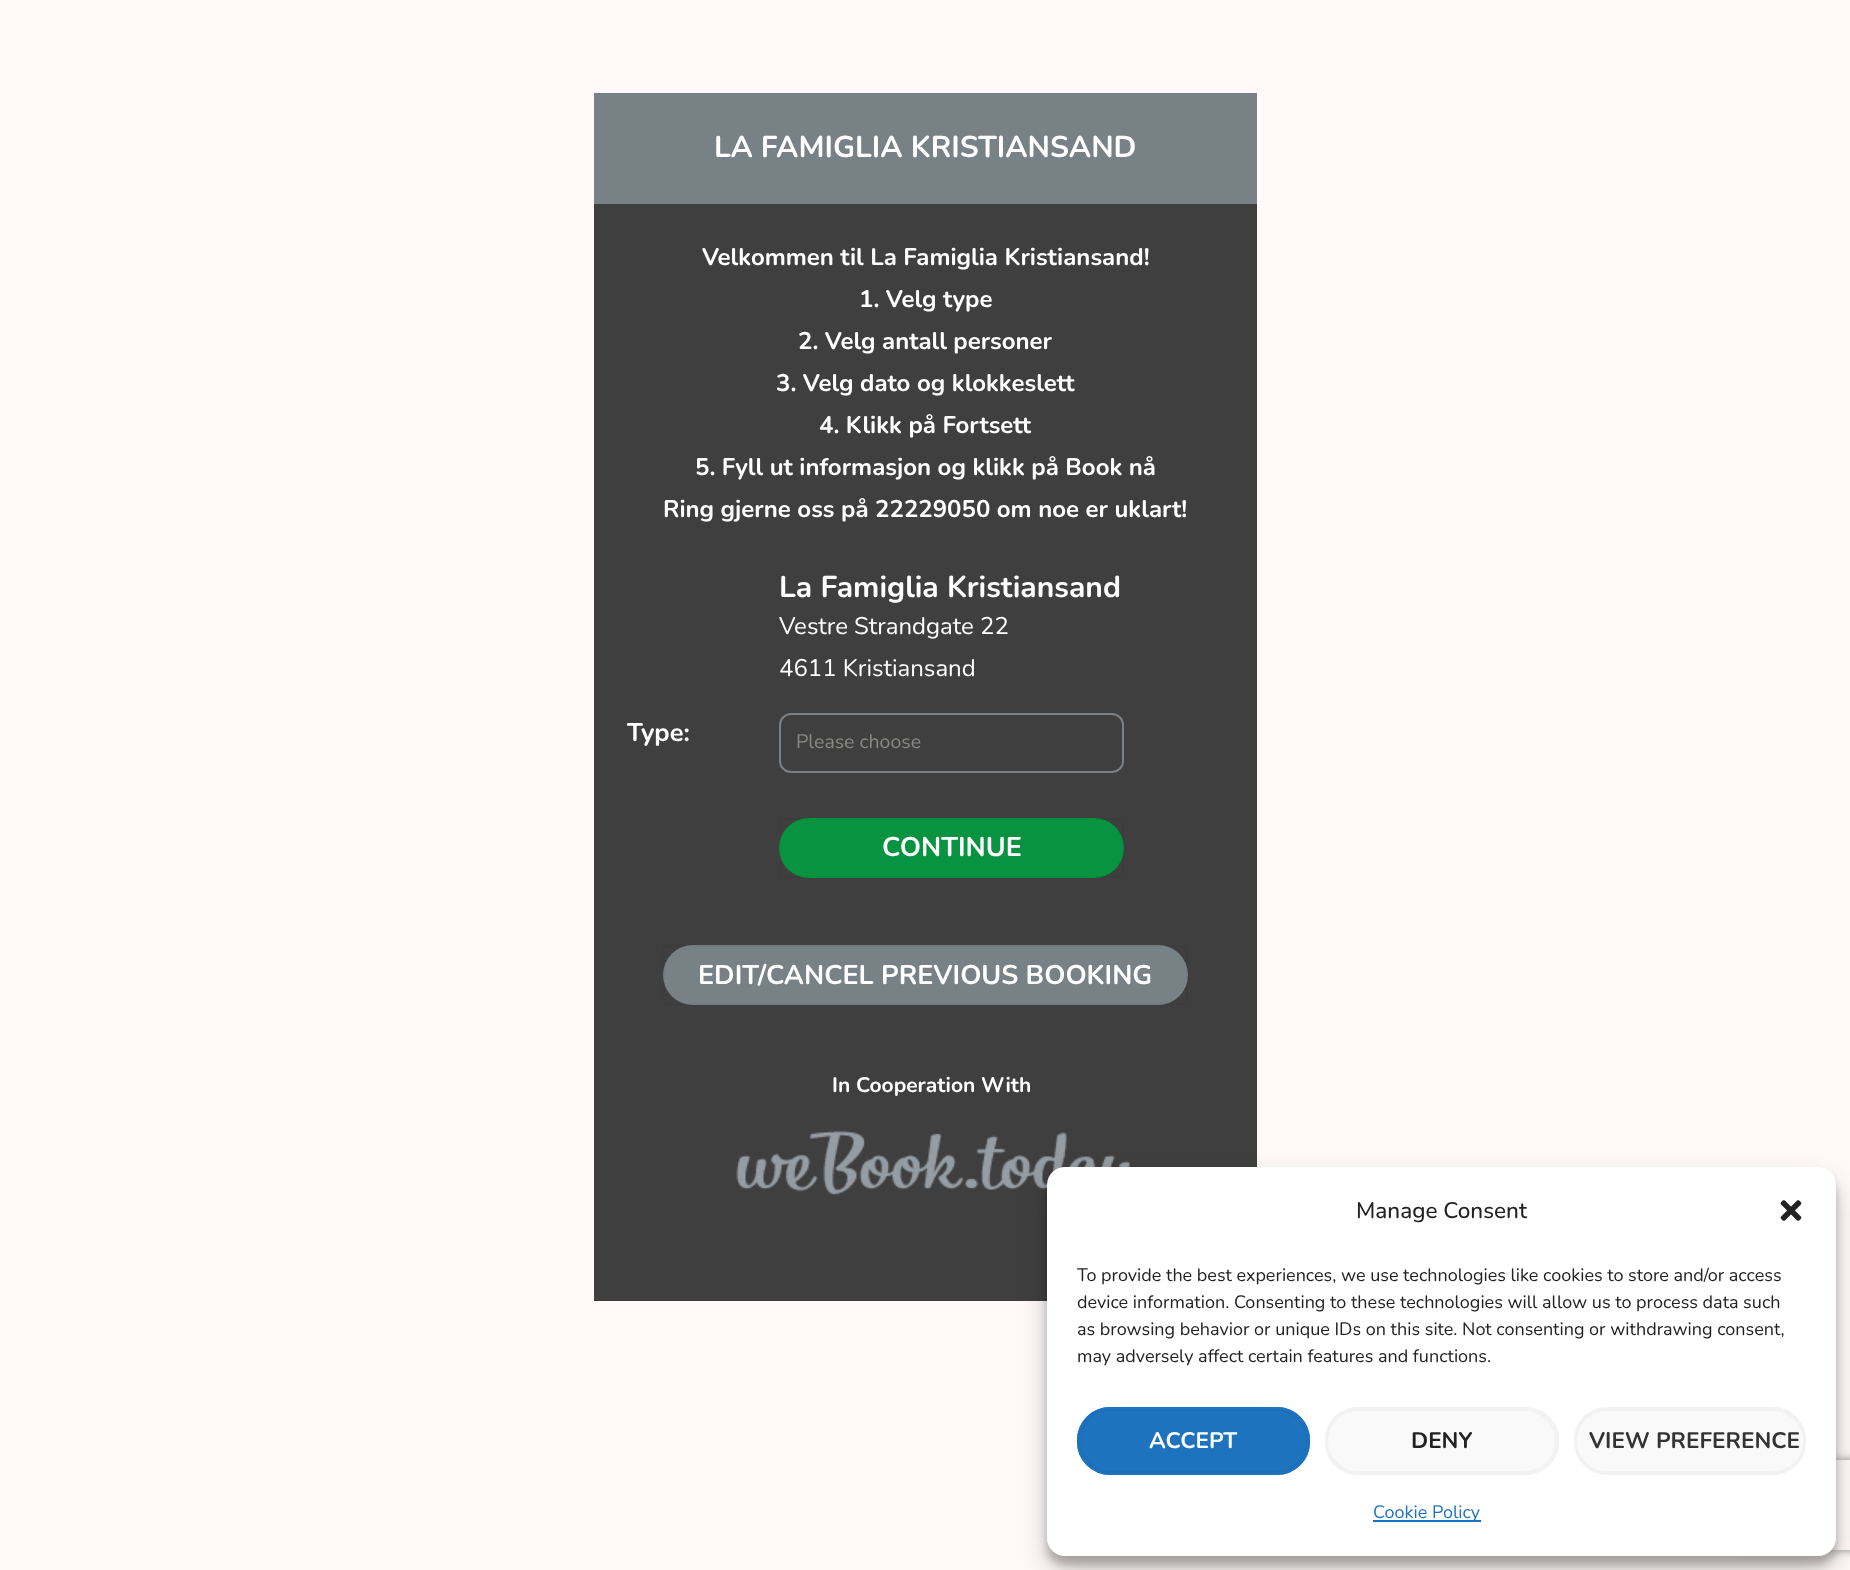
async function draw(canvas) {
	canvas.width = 1850;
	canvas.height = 1570;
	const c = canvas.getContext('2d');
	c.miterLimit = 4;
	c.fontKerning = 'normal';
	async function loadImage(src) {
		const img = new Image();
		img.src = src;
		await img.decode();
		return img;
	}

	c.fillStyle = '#fff9f9';
	c.fillRect(0, 0, 1850, 1570);
	c.fillStyle = '#403f3f';
	c.fillRect(594, 204, 663, 1097);
	c.fillStyle = '#788186';
	c.fillRect(594, 93, 663, 111);
	c.font = 'bold 30px Nunito';
	c.fillStyle = '#fff';
	c.fillText('LA FAMIGLIA KRISTIANSAND', 714, 157);
	c.font = 'bold 24px Nunito';
	for (const [text, x, y] of [
		['Velkommen til La Famiglia Kristiansand!', 702, 265],
		['1. Velg type', 859, 307],
		['2. Velg antall personer', 798, 349],
		['3. Velg dato og klokkeslett', 776, 391],
		['4. Klikk på Fortsett', 819, 433],
		['5. Fyll ut informasjon og klikk på Book nå', 695, 475],
		['Ring gjerne oss på 22229050 om noe er uklart!', 663, 517],
	]) {
		c.fillText(text, x, y);
	}
	c.font = 'bold 30px Nunito';
	c.fillText('La Famiglia Kristiansand', 779, 597);
	c.font = '24px Nunito';
	c.fillText('Vestre Strandgate 22', 779, 634);
	c.fillText('4611 Kristiansand', 779, 676);
	c.font = 'bold 25.5px Nunito';
	c.fillText('Type:', 627, 741);
	c.beginPath();
	c.roundRect(780, 714, 343, 58, 11);
	c.strokeStyle = '#788186';
	c.lineWidth = 2;
	c.stroke();
	c.font = '19.5px Nunito';
	c.fillStyle = '#898885';
	c.fillText('Please choose', 796, 748);
	c.fillStyle = '#07933f';
	c.beginPath();
	c.roundRect(779, 818, 345, 60, 30);
	c.fill();
	c.strokeStyle = '#00000008';
	c.strokeRect(780, 819, 343, 58);
	c.font = 'bold 27px Nunito';
	c.fillStyle = '#fff';
	c.fillText('CONTINUE', 882, 856);
	c.fillStyle = '#788186';
	c.beginPath();
	c.roundRect(663, 945, 525, 60, 30);
	c.fill();
	c.strokeRect(664, 946, 523, 58);
	c.fillStyle = '#fff';
	c.fillText('EDIT/CANCEL PREVIOUS BOOKING', 698, 984);
	c.font = 'bold 21px Nunito';
	c.fillText('In Cooperation With', 832, 1092);
	c.drawImage(await loadImage('img1.png'), 736, 1130, 394, 65);
	c.fillStyle = '#0000003b';
	c.filter = 'blur(4.5px)';
	c.beginPath();
	c.roundRect(1047, 1176, 789, 389, 18);
	c.fill();
	c.filter = 'none';
	c.fillStyle = '#00000030';
	c.filter = 'blur(15px)';
	c.beginPath();
	c.roundRect(1047, 1182, 789, 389, 18);
	c.fill();
	c.filter = 'none';
	c.save();
	c.beginPath();
	c.moveTo(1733, 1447);
	c.lineTo(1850, 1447);
	c.lineTo(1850, 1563);
	c.lineTo(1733, 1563);
	c.closePath();
	c.moveTo(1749, 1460);
	c.lineTo(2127, 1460);
	c.bezierCurveTo(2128.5, 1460, 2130, 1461.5, 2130, 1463);
	c.lineTo(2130, 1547);
	c.bezierCurveTo(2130, 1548.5, 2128.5, 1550, 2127, 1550);
	c.lineTo(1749, 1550);
	c.bezierCurveTo(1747.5, 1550, 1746, 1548.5, 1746, 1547);
	c.lineTo(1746, 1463);
	c.bezierCurveTo(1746, 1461.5, 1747.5, 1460, 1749, 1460);
	c.closePath();
	c.clip('evenodd');
	c.fillStyle = '#808080';
	c.filter = 'blur(4px)';
	c.beginPath();
	c.roundRect(1746, 1460, 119, 90, 3);
	c.fill();
	c.filter = 'none';
	c.restore();
	c.fillStyle = '#fff';
	c.beginPath();
	c.roundRect(1047, 1167, 789, 389, 18);
	c.fill();
	c.font = '500 22.5px Nunito';
	c.fillStyle = '#222';
	c.fillText('Manage Consent', 1356, 1218);
	c.drawImage(await loadImage('img2.png'), 1780, 1200, 22, 21);
	c.font = '18px Nunito';
	for (const [text, x, y] of [
		['To provide the best experiences, we use technologies like cookies to store and/or access', 1077, 1281],
		['device information. Consenting to these technologies will allow us to process data such', 1077, 1308],
		['as browsing behavior or unique IDs on this site. Not consenting or withdrawing consent,', 1077, 1335],
		['may adversely affect certain features and functions.', 1077, 1362],
	]) {
		c.fillText(text, x, y);
	}
	c.fillStyle = '#1e73be';
	c.beginPath();
	c.roundRect(1077, 1407, 233, 68, 33);
	c.fill();
	c.beginPath();
	c.roundRect(1080, 1410, 227, 62, 31);
	c.strokeStyle = '#1d70b8';
	c.stroke();
	c.beginPath();
	c.roundRect(1078, 1408, 231, 66, 32);
	c.strokeStyle = '#1e73be';
	c.stroke();
	c.font = 'bold 22.5px Nunito';
	c.fillStyle = '#fff';
	c.fillText('ACCEPT', 1149, 1448);
	c.fillStyle = '#f9f9f9';
	c.beginPath();
	c.roundRect(1325, 1407, 234, 68, 33);
	c.fill();
	c.beginPath();
	c.roundRect(1327, 1410, 229, 62, 31);
	c.strokeStyle = '#f2f2f2';
	c.stroke();
	c.beginPath();
	c.roundRect(1326, 1408, 232, 66, 32);
	c.stroke();
	c.fillStyle = '#222';
	c.fillText('DENY', 1411, 1448);
	c.fillStyle = '#f9f9f9';
	c.beginPath();
	c.roundRect(1574, 1407, 232, 68, 33);
	c.fill();
	c.beginPath();
	c.roundRect(1576, 1410, 228, 62, 31);
	c.stroke();
	c.beginPath();
	c.roundRect(1575, 1408, 230, 66, 32);
	c.stroke();
	c.fillStyle = '#333';
	c.fillText('VIEW PREFERENCE', 1589, 1448);
	c.fillStyle = '#1e73be';
	c.fillRect(1373, 1520, 108, 2);
	c.font = '18px Nunito';
	c.fillText('Cookie Policy', 1373, 1518);
}

draw(document.querySelector('canvas'));
